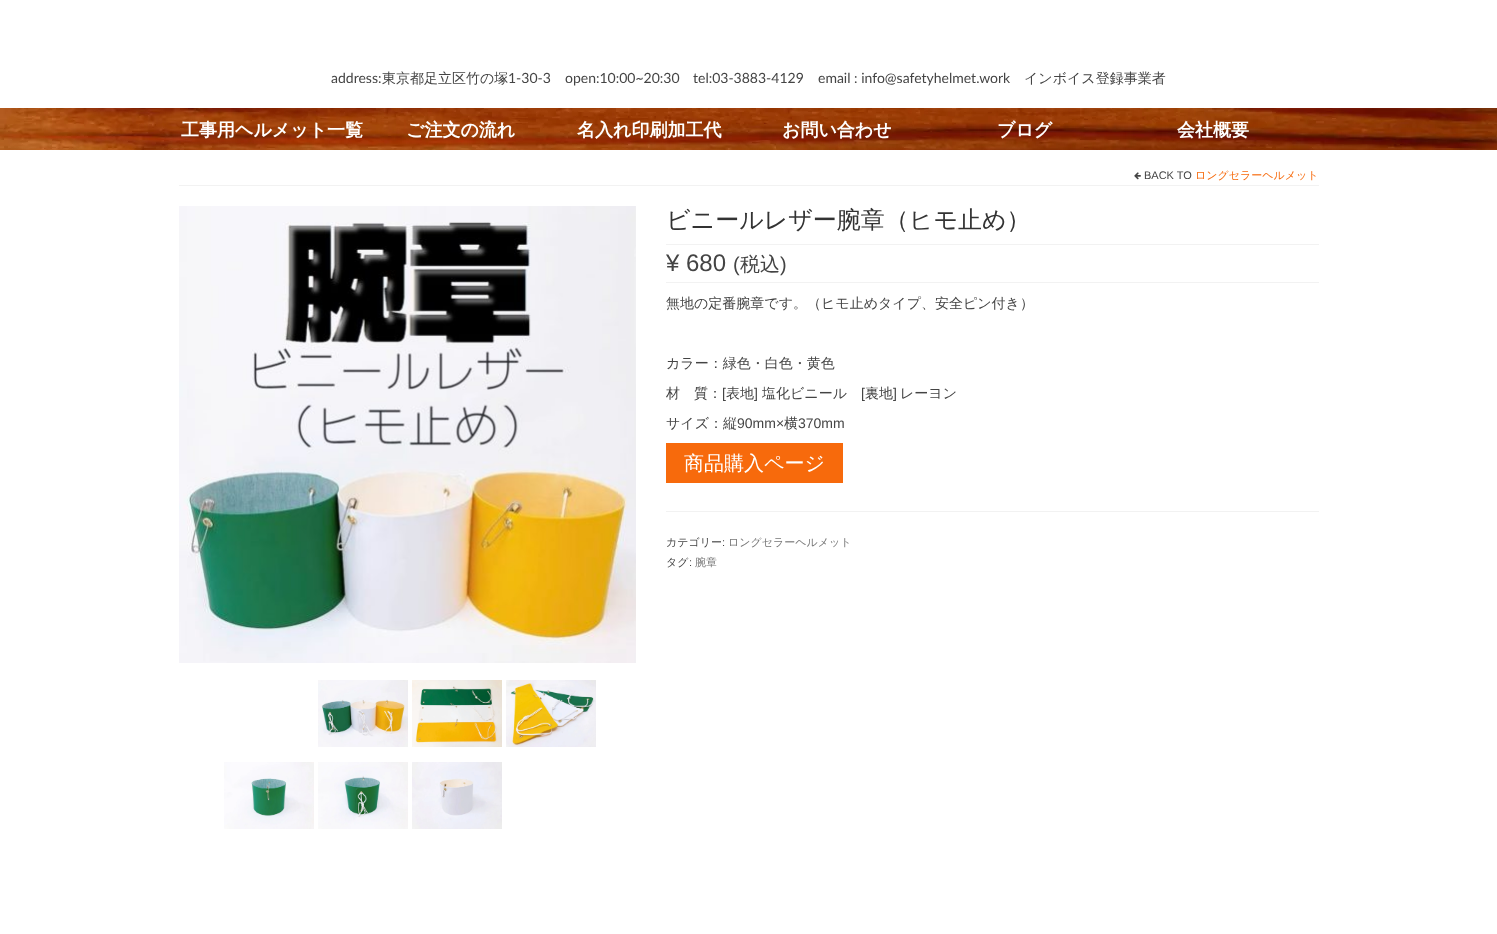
async function draw(canvas) {
	canvas.width = 1497;
	canvas.height = 934;
	const c = canvas.getContext('2d');
	c.miterLimit = 4;
	c.fontKerning = 'normal';
	async function loadImage(src) {
		const img = new Image();
		img.src = src;
		await img.decode();
		return img;
	}

	c.fillStyle = '#fff';
	c.fillRect(0, 0, 1497, 934);
	c.font = '14px Lato';
	c.fillStyle = '#444';
	c.fillText('address:', 331, 83);
	c.font = '500 14px WenQuanYi Zen Hei';
	c.fillText('東京都足立区竹の塚', 382, 83);
	c.font = '14px Lato';
	for (const [text, x, y] of [
		['1-30-3', 508, 83],
		['open:10:00~20:30', 565, 83],
		['tel:03-3883-4129', 693, 83],
		['email : info@safetyhelmet.work', 818, 83],
	]) {
		c.fillText(text, x, y);
	}
	c.font = '500 14px WenQuanYi Zen Hei';
	c.fillText('インボイス登録事業者', 1024, 83);
	c.drawImage(await loadImage('img1.png'), 0, 108, 1497, 42);
	c.font = 'bold 18px WenQuanYi Zen Hei';
	c.fillStyle = '#fff';
	for (const [text, x, y] of [
		['工事用ヘルメット一覧', 181, 136],
		['ご注文の流れ', 406, 136],
		['名入れ印刷加工代', 577, 136],
		['お問い合わせ', 782, 136],
		['ブログ', 997, 136],
		['会社概要', 1177, 136],
	]) {
		c.fillText(text, x, y);
	}
	c.fillStyle = '#f2f2f2';
	c.fillRect(179, 185, 1140, 1);
	c.drawImage(await loadImage('img2.png'), 1134, 172, 7, 8);
	c.font = '11px Liberation Sans';
	c.fillStyle = '#444';
	c.fillText('BACK TO', 1144, 179);
	c.font = '500 11px WenQuanYi Zen Hei';
	c.fillStyle = '#f76a0c';
	c.fillText('ロングセラーヘルメット', 1195, 179);
	c.drawImage(await loadImage('img3.png'), 179, 206, 457, 457);
	c.drawImage(await loadImage('img4.png'), 318, 680, 90, 67);
	c.drawImage(await loadImage('img5.png'), 412, 680, 90, 67);
	c.drawImage(await loadImage('img6.png'), 506, 680, 90, 67);
	c.drawImage(await loadImage('img7.png'), 224, 762, 90, 67);
	c.drawImage(await loadImage('img8.png'), 318, 762, 90, 67);
	c.drawImage(await loadImage('img9.png'), 412, 762, 90, 67);
	c.font = '500 24px WenQuanYi Zen Hei';
	c.fillStyle = '#333';
	c.fillText('ビニールレザー腕章（ヒモ止め）', 666, 228);
	c.fillStyle = '#f2f2f2';
	c.fillRect(666, 244, 653, 1);
	c.fillRect(666, 282, 653, 1);
	c.font = '24px Liberation Sans';
	c.fillStyle = '#444';
	c.fillText('¥ 680', 666, 271);
	c.font = '20px Liberation Sans';
	c.fillText('(', 733, 271);
	c.font = '500 20px WenQuanYi Zen Hei';
	c.fillText('税込', 740, 271);
	c.font = '20px Liberation Sans';
	c.fillText(')', 780, 271);
	c.font = '500 14px WenQuanYi Zen Hei';
	for (const [text, x, y] of [
		['無地の定番腕章です。（ヒモ止めタイプ、安全ピン付き）', 666, 308],
		['カラー：緑色・白色・黄色', 666, 368],
		['材　質：', 666, 398],
	]) {
		c.fillText(text, x, y);
	}
	c.font = '14px Liberation Sans';
	c.fillText('[', 722, 398);
	c.font = '500 14px WenQuanYi Zen Hei';
	c.fillText('表地', 726, 398);
	c.font = '14px Liberation Sans';
	c.fillText(']', 754, 398);
	c.font = '500 14px WenQuanYi Zen Hei';
	c.fillText('塩化ビニール', 762, 398);
	c.font = '14px Liberation Sans';
	c.fillText('[', 861, 398);
	c.font = '500 14px WenQuanYi Zen Hei';
	c.fillText('裏地', 865, 398);
	c.font = '14px Liberation Sans';
	c.fillText(']', 893, 398);
	c.font = '500 14px WenQuanYi Zen Hei';
	c.fillText('レーヨン', 900, 398);
	c.fillText('サイズ：縦', 666, 428);
	c.font = '14px Liberation Sans';
	c.fillText('90mm×', 737, 428);
	c.font = '500 14px WenQuanYi Zen Hei';
	c.fillText('横', 784, 428);
	c.font = '14px Liberation Sans';
	c.fillText('370mm', 798, 428);
	c.fillStyle = '#f76a0c';
	c.fillRect(666, 443, 177, 40);
	c.font = '500 20px WenQuanYi Zen Hei';
	c.fillStyle = '#fff';
	c.fillText('商品購入ページ', 684, 470);
	c.fillStyle = '#f2f2f2';
	c.fillRect(666, 511, 653, 1);
	c.font = '500 11px WenQuanYi Zen Hei';
	c.fillStyle = '#444';
	c.fillText('カテゴリー', 666, 546);
	c.font = '11px Liberation Sans';
	c.fillText(':', 722, 546);
	c.font = '500 11px WenQuanYi Zen Hei';
	c.fillStyle = '#777';
	c.fillText('ロングセラーヘルメット', 728, 546);
	c.fillStyle = '#444';
	c.fillText('タグ', 666, 566);
	c.font = '11px Liberation Sans';
	c.fillText(':', 689, 566);
	c.font = '500 11px WenQuanYi Zen Hei';
	c.fillStyle = '#777';
	c.fillText('腕章', 695, 566);
}

draw(document.querySelector('canvas'));
